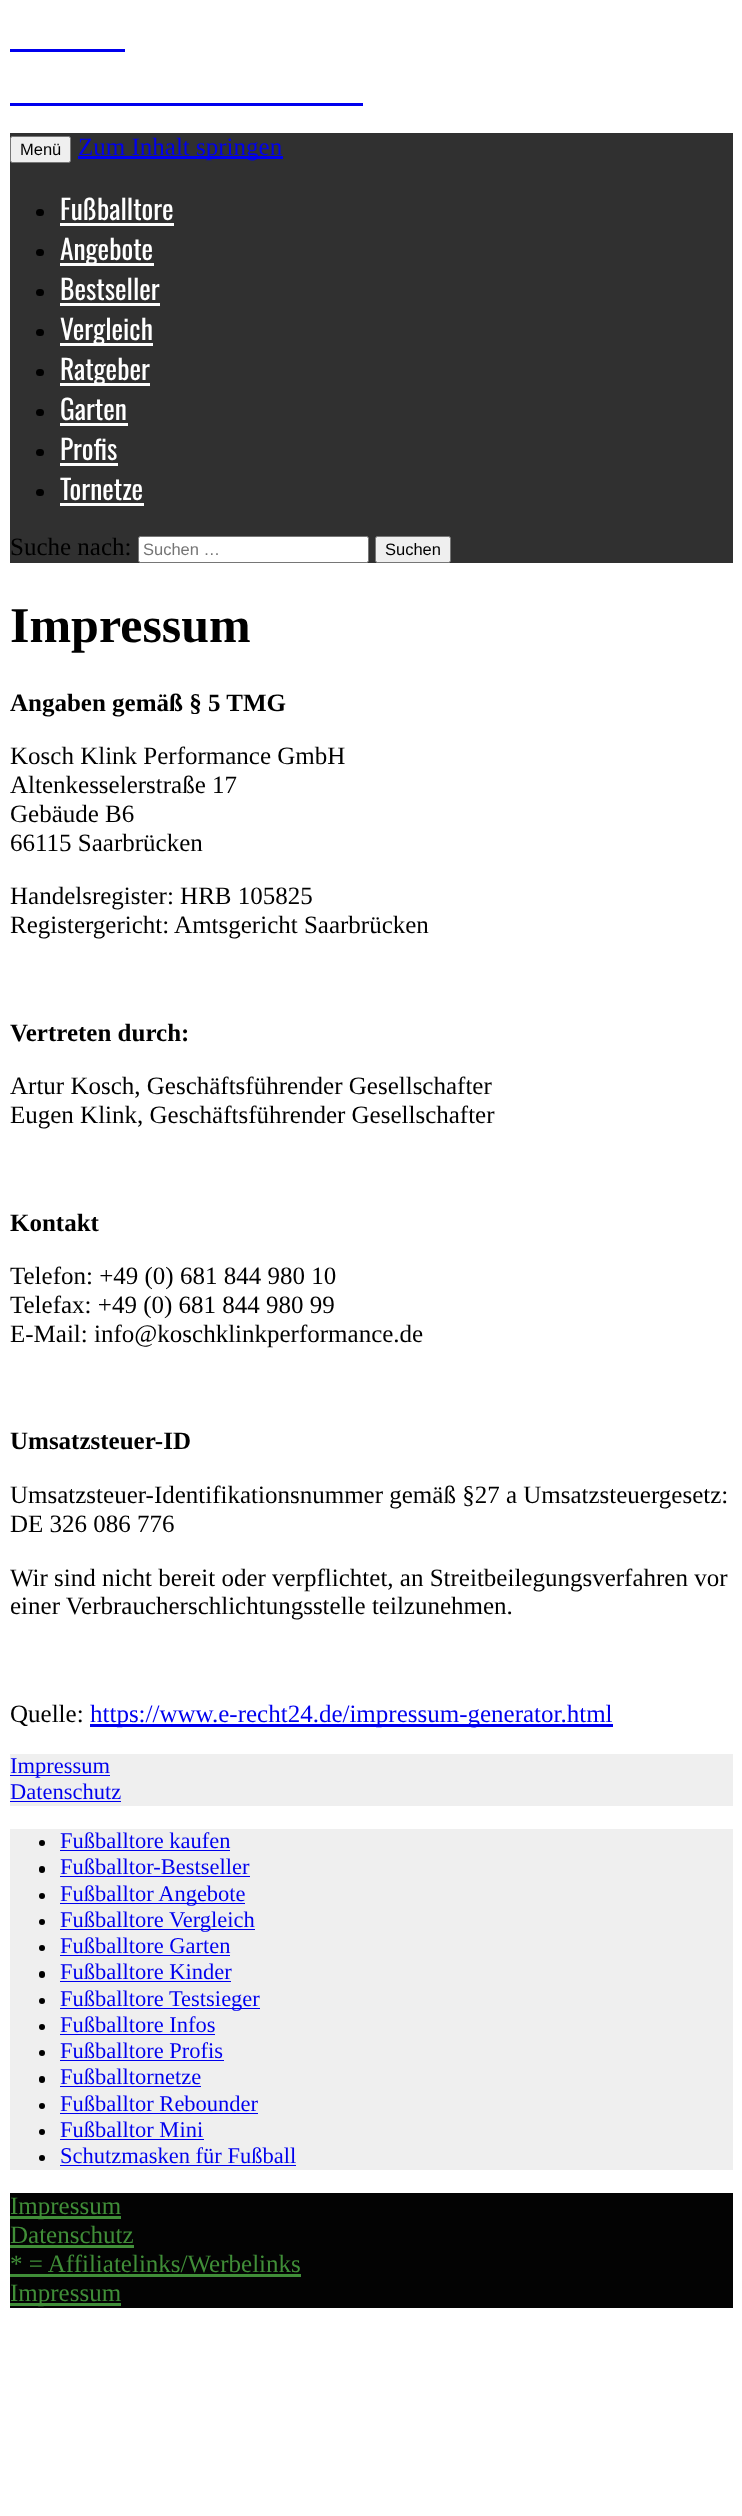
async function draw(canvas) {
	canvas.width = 742;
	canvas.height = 2516;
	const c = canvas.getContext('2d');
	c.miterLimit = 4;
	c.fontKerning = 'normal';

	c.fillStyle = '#fff';
	c.fillRect(0, 0, 742, 2516);
	for (const [x, y, w, h, color] of [
		[10, 49, 115, 3, '#00e'],
		[10, 103, 353, 3, '#00e'],
		[10, 133, 723, 430, '#303030'],
	]) {
		c.fillStyle = color;
		c.fillRect(x, y, w, h);
	}
	c.fillStyle = '#efefef';
	c.beginPath();
	c.roundRect(10.5, 136.5, 60, 26, 2);
	c.fill();
	c.strokeStyle = '#767676';
	c.stroke();
	c.font = '16.5px Liberation Sans';
	c.fillStyle = '#000';
	c.fillText('Menü', 20, 155);
	c.fillStyle = '#00e';
	c.fillRect(78, 156, 205, 3);
	c.font = '25px Liberation Serif';
	c.fillText('Zum Inhalt springen', 78, 155);
	c.fillStyle = '#000';
	c.beginPath();
	c.roundRect(36, 209, 8, 7, 3.5);
	c.fill();
	c.font = '27.5px Oswald';
	c.fillStyle = '#fff';
	c.fillText('Fußballtore', 60, 220);
	c.fillRect(60, 223, 114, 3);
	c.fillStyle = '#000';
	c.beginPath();
	c.roundRect(36, 249, 8, 7, 3.5);
	c.fill();
	c.fillStyle = '#fff';
	c.fillRect(60, 263, 94, 3);
	c.fillText('Angebote', 60, 260);
	c.fillStyle = '#000';
	c.beginPath();
	c.roundRect(36, 289, 8, 7, 3.5);
	c.fill();
	c.fillStyle = '#fff';
	c.fillText('Bestseller', 60, 300);
	c.fillRect(60, 303, 100, 3);
	c.fillStyle = '#000';
	c.beginPath();
	c.roundRect(36, 329, 8, 7, 3.5);
	c.fill();
	c.fillStyle = '#fff';
	c.fillRect(60, 343, 93, 3);
	c.fillText('Vergleich', 60, 340);
	c.fillStyle = '#000';
	c.beginPath();
	c.roundRect(36, 369, 8, 7, 3.5);
	c.fill();
	c.fillStyle = '#fff';
	c.fillRect(60, 383, 90, 3);
	c.fillText('Ratgeber', 60, 380);
	c.fillStyle = '#000';
	c.beginPath();
	c.roundRect(36, 409, 8, 7, 3.5);
	c.fill();
	c.fillStyle = '#fff';
	c.fillText('Garten', 60, 420);
	c.fillRect(60, 423, 68, 3);
	c.fillStyle = '#000';
	c.beginPath();
	c.roundRect(36, 449, 8, 7, 3.5);
	c.fill();
	c.fillStyle = '#fff';
	c.fillText('Profis', 60, 460);
	c.fillRect(60, 463, 58, 3);
	c.fillStyle = '#000';
	c.beginPath();
	c.roundRect(36, 489, 8, 7, 3.5);
	c.fill();
	c.fillStyle = '#fff';
	c.fillText('Tornetze', 60, 500);
	c.fillRect(60, 503, 84, 3);
	c.font = '25px Liberation Serif';
	c.fillStyle = '#000';
	c.fillText('Suche nach:', 10, 555);
	c.fillStyle = '#fff';
	c.beginPath();
	c.roundRect(138.5, 536.5, 230, 26, 2);
	c.fill();
	c.stroke();
	c.font = '16.5px Liberation Sans';
	c.fillStyle = '#757575';
	c.fillText('Suchen …', 143, 555);
	c.fillStyle = '#efefef';
	c.beginPath();
	c.roundRect(375.5, 536.5, 75, 26, 2);
	c.fill();
	c.stroke();
	c.fillStyle = '#000';
	c.fillText('Suchen', 385, 555);
	c.font = 'bold 50px Liberation Serif';
	c.fillText('Impressum', 10, 642);
	c.font = 'bold 25px Liberation Serif';
	c.fillText('Angaben gemäß § 5 TMG', 10, 711);
	c.font = '25px Liberation Serif';
	for (const [text, x, y] of [
		['Kosch Klink Performance GmbH', 10, 764],
		['Altenkesselerstraße 17', 10, 793],
		['Gebäude B6', 10, 822],
		['66115 Saarbrücken', 10, 851],
		['Handelsregister: HRB 105825', 10, 904],
		['Registergericht: Amtsgericht Saarbrücken', 10, 933],
	]) {
		c.fillText(text, x, y);
	}
	c.font = 'bold 25px Liberation Serif';
	c.fillText('Vertreten durch:', 10, 1041);
	c.font = '25px Liberation Serif';
	c.fillText('Artur Kosch, Geschäftsführender Gesellschafter', 10, 1094);
	c.fillText('Eugen Klink, Geschäftsführender Gesellschafter', 10, 1123);
	c.font = 'bold 25px Liberation Serif';
	c.fillText('Kontakt', 10, 1231);
	c.font = '25px Liberation Serif';
	for (const [text, x, y] of [
		['Telefon: +49 (0) 681 844 980 10', 10, 1284],
		['Telefax: +49 (0) 681 844 980 99', 10, 1313],
		['E-Mail: info@koschklinkperformance.de', 10, 1342],
	]) {
		c.fillText(text, x, y);
	}
	c.font = 'bold 25px Liberation Serif';
	c.fillText('Umsatzsteuer-ID', 10, 1449);
	c.font = '25px Liberation Serif';
	for (const [text, x, y] of [
		['Umsatzsteuer-Identifikationsnummer gemäß §27 a Umsatzsteuergesetz:', 10, 1503],
		['DE 326 086 776', 10, 1532],
		['Wir sind nicht bereit oder verpflichtet, an Streitbeilegungsverfahren vor', 10, 1586],
		['einer Verbraucherschlichtungsstelle teilzunehmen.', 10, 1614],
		['Quelle:', 10, 1722],
	]) {
		c.fillText(text, x, y);
	}
	c.fillStyle = '#00e';
	c.fillRect(90, 1724, 523, 3);
	c.fillText('https://www.e-recht24.de/impressum-generator.html', 90, 1722);
	c.fillStyle = '#efefef';
	c.fillRect(10, 1754, 723, 52);
	c.fillStyle = '#00e';
	c.fillRect(10, 1775, 100, 1);
	c.font = '22.5px Liberation Serif';
	c.fillText('Impressum', 10, 1773);
	c.fillText('Datenschutz', 10, 1799);
	c.fillRect(10, 1801, 111, 1);
	c.fillStyle = '#efefef';
	c.fillRect(10, 1829, 723, 341);
	c.fillStyle = '#000';
	c.beginPath();
	c.arc(42, 1843, 3, 0, 2 * Math.PI);
	c.fill();
	c.fillStyle = '#00e';
	c.fillText('Fußballtore kaufen', 60, 1848);
	c.fillRect(60, 1850, 170, 1);
	c.fillStyle = '#000';
	c.beginPath();
	c.roundRect(39, 1866, 6, 7, 3);
	c.fill();
	c.fillStyle = '#00e';
	c.fillText('Fußballtor-Bestseller', 60, 1874);
	c.fillRect(60, 1876, 190, 1);
	c.fillStyle = '#000';
	c.beginPath();
	c.arc(42, 1896, 3, 0, 2 * Math.PI);
	c.fill();
	c.fillStyle = '#00e';
	c.fillRect(60, 1903, 185, 1);
	c.fillText('Fußballtor Angebote', 60, 1901);
	c.fillStyle = '#000';
	c.beginPath();
	c.arc(42, 1922, 3, 0, 2 * Math.PI);
	c.fill();
	c.fillStyle = '#00e';
	c.fillRect(60, 1929, 195, 1);
	c.fillText('Fußballtore Vergleich', 60, 1927);
	c.fillStyle = '#000';
	c.beginPath();
	c.arc(42, 1948, 3, 0, 2 * Math.PI);
	c.fill();
	c.fillStyle = '#00e';
	c.fillText('Fußballtore Garten', 60, 1953);
	c.fillRect(60, 1955, 170, 1);
	c.fillStyle = '#000';
	c.beginPath();
	c.roundRect(39, 1971, 6, 7, 3);
	c.fill();
	c.fillStyle = '#00e';
	c.fillText('Fußballtore Kinder', 60, 1979);
	c.fillRect(60, 1981, 171, 1);
	c.fillStyle = '#000';
	c.beginPath();
	c.arc(42, 2001, 3, 0, 2 * Math.PI);
	c.fill();
	c.fillStyle = '#00e';
	c.fillRect(60, 2008, 200, 1);
	c.fillText('Fußballtore Testsieger', 60, 2006);
	c.fillStyle = '#000';
	c.beginPath();
	c.arc(42, 2027, 3, 0, 2 * Math.PI);
	c.fill();
	c.fillStyle = '#00e';
	c.fillText('Fußballtore Infos', 60, 2032);
	c.fillRect(60, 2034, 155, 1);
	c.fillStyle = '#000';
	c.beginPath();
	c.arc(42, 2053, 3, 0, 2 * Math.PI);
	c.fill();
	c.fillStyle = '#00e';
	c.fillText('Fußballtore Profis', 60, 2058);
	c.fillRect(60, 2060, 164, 1);
	c.fillStyle = '#000';
	c.beginPath();
	c.roundRect(39, 2076, 6, 7, 3);
	c.fill();
	c.fillStyle = '#00e';
	c.fillText('Fußballtornetze', 60, 2084);
	c.fillRect(60, 2086, 141, 1);
	c.fillStyle = '#000';
	c.beginPath();
	c.arc(42, 2106, 3, 0, 2 * Math.PI);
	c.fill();
	c.fillStyle = '#00e';
	c.fillText('Fußballtor Rebounder', 60, 2111);
	c.fillRect(60, 2113, 198, 1);
	c.fillStyle = '#000';
	c.beginPath();
	c.arc(42, 2132, 3, 0, 2 * Math.PI);
	c.fill();
	c.fillStyle = '#00e';
	c.fillText('Fußballtor Mini', 60, 2137);
	c.fillRect(60, 2139, 144, 1);
	c.fillStyle = '#000';
	c.beginPath();
	c.arc(42, 2158, 3, 0, 2 * Math.PI);
	c.fill();
	c.fillStyle = '#00e';
	c.fillText('Schutzmasken für Fußball', 60, 2163);
	for (const [x, y, w, h, color] of [
		[60, 2165, 236, 1, '#00e'],
		[10, 2193, 723, 115, '#030303'],
		[10, 2216, 111, 3, '#408e38'],
	]) {
		c.fillStyle = color;
		c.fillRect(x, y, w, h);
	}
	c.font = '25px Liberation Serif';
	c.fillText('Impressum', 10, 2214);
	c.fillText('Datenschutz', 10, 2243);
	c.fillRect(10, 2245, 124, 3);
	c.fillText('* = Affiliatelinks/Werbelinks', 10, 2272);
	c.fillRect(10, 2274, 291, 3);
	c.fillRect(10, 2303, 111, 3);
	c.fillText('Impressum', 10, 2301);
}

draw(document.querySelector('canvas'));
